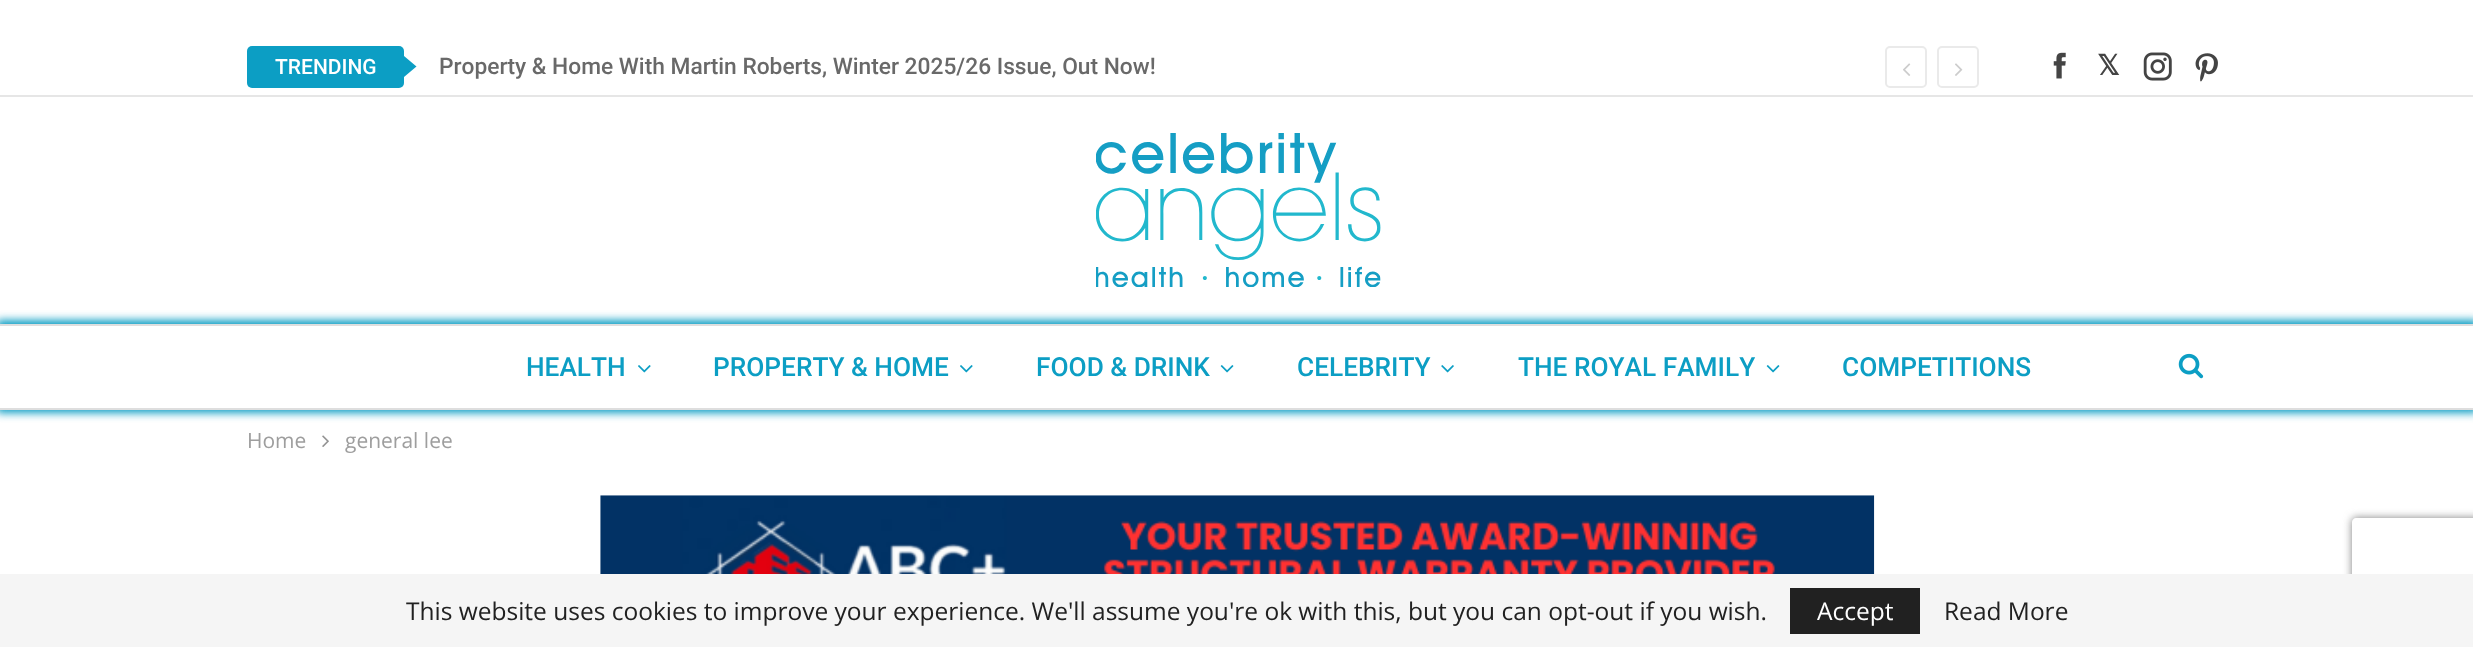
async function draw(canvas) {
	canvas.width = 2473;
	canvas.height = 647;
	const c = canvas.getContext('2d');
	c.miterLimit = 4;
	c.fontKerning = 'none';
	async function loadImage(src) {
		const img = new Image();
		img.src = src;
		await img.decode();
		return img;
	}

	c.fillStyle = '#fff';
	c.fillRect(0, 0, 2473, 647);
	c.fillStyle = '#e6e6e6';
	c.fillRect(0, 95, 2473, 2);
	c.fillStyle = '#0c9ec4';
	c.beginPath();
	c.roundRect(247, 46, 157, 42, 5);
	c.fill();
	c.font = '500 21px Roboto';
	c.fillStyle = '#fff';
	c.fillText('TRENDING', 275, 74);
	c.fillStyle = '#0c9ec4';
	c.beginPath();
	c.moveTo(404, 77);
	c.lineTo(404, 56);
	c.lineTo(416.5, 66.5);
	c.closePath();
	c.fill();
	c.font = '500 22.75px Roboto';
	c.fillStyle = '#696969';
	c.fillText('Property & Home With Martin Roberts, Winter 2025/26 Issue, Out Now!', 439, 74);
	c.beginPath();
	c.roundRect(1886, 47, 40, 40, 4);
	c.strokeStyle = '#eaeaea';
	c.lineWidth = 2;
	c.stroke();
	c.drawImage(await loadImage('img1.png'), 1903, 63, 8, 13);
	c.beginPath();
	c.roundRect(1938, 47, 40, 40, 4);
	c.stroke();
	c.drawImage(await loadImage('img2.png'), 1955, 63, 8, 13);
	c.drawImage(await loadImage('img3.png'), 2053, 52, 13, 27);
	c.font = 'bold 28px DejaVu Sans';
	c.fillStyle = '#444';
	c.fillText('𝕏', 2097, 75);
	c.drawImage(await loadImage('img4.png'), 2143, 52, 29, 29);
	c.drawImage(await loadImage('img5.png'), 2195, 53, 23, 29);
	c.drawImage(await loadImage('img6.png'), 1096, 133, 285, 154);
	c.fillStyle = '#0c9ec4';
	c.filter = 'blur(4.5px)';
	c.beginPath();
	c.rect(-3, 320, 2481, 93);
	c.fill();
	c.filter = 'none';
	for (const [x, y, w, h, color] of [
		[0, 326, 2473, 82, '#fff'],
		[0, 324, 2473, 2, '#dedede'],
		[0, 408, 2473, 2, '#dedede'],
	]) {
		c.fillStyle = color;
		c.fillRect(x, y, w, h);
	}
	c.font = '500 26.25px Roboto';
	c.fillStyle = '#0c9ec4';
	c.fillText('HEALTH', 526, 376);
	c.drawImage(await loadImage('img7.png'), 638, 365, 13, 8);
	c.fillText('PROPERTY & HOME', 713, 376);
	c.drawImage(await loadImage('img7.png'), 960, 365, 13, 8);
	c.fillText('FOOD & DRINK', 1036, 376);
	c.drawImage(await loadImage('img8.png'), 1220, 365, 14, 8);
	c.fillText('CELEBRITY', 1297, 376);
	c.drawImage(await loadImage('img9.png'), 1441, 365, 13, 8);
	c.fillText('THE ROYAL FAMILY', 1518, 376);
	c.drawImage(await loadImage('img8.png'), 1766, 365, 14, 8);
	c.fillText('COMPETITIONS', 1842, 376);
	c.drawImage(await loadImage('img10.png'), 2178, 353, 26, 26);
	c.font = '21px Open Sans';
	c.fillStyle = '#9e9e9e';
	c.fillText('Home', 247, 448);
	c.drawImage(await loadImage('img11.png'), 322, 435, 7, 12);
	c.fillText('general lee', 345, 448);
	c.drawImage(await loadImage('img12.png'), 600, 495, 1275, 79);
	c.save();
	c.beginPath();
	c.moveTo(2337, 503);
	c.lineTo(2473, 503);
	c.lineTo(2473, 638);
	c.lineTo(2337, 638);
	c.closePath();
	c.moveTo(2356, 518);
	c.lineTo(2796, 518);
	c.bezierCurveTo(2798, 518, 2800, 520, 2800, 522);
	c.lineTo(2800, 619);
	c.bezierCurveTo(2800, 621, 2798, 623, 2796, 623);
	c.lineTo(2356, 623);
	c.bezierCurveTo(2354, 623, 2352, 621, 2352, 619);
	c.lineTo(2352, 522);
	c.bezierCurveTo(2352, 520, 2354, 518, 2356, 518);
	c.closePath();
	c.clip('evenodd');
	c.fillStyle = '#808080';
	c.filter = 'blur(4.5px)';
	c.beginPath();
	c.roundRect(2352, 518, 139, 105, 4);
	c.fill();
	c.filter = 'none';
	c.restore();
	c.fillStyle = '#f5f5f5';
	c.fillRect(0, 574, 2473, 73);
	c.font = '24.5px Open Sans';
	c.fillStyle = '#212121';
	c.fillText('This website uses cookies to improve your experience. We\'ll assume you\'re ok with this, but you can opt-out if you wish.', 406, 620);
	c.fillRect(1790, 588, 130, 46);
	c.fillStyle = '#fff';
	c.fillText('Accept', 1817, 620);
	c.fillStyle = '#212121';
	c.fillText('Read More', 1944, 620);
}

draw(document.querySelector('canvas'));
